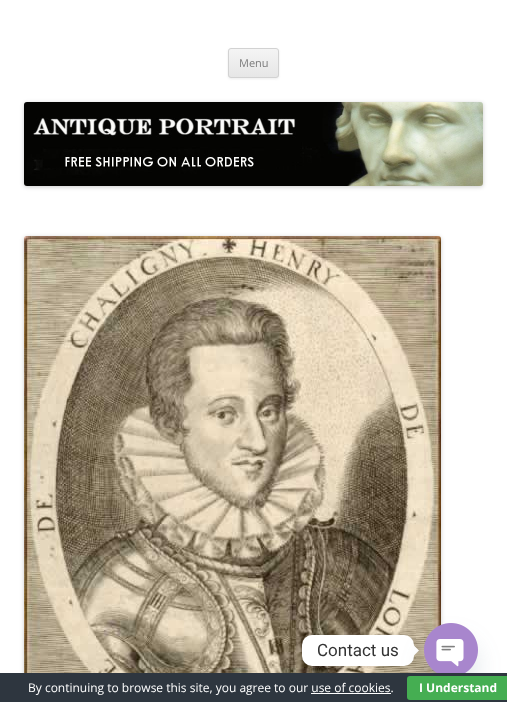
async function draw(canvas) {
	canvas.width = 507;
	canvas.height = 702;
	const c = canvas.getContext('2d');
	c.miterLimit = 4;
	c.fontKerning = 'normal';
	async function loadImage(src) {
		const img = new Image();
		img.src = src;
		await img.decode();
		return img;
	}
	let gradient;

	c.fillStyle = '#fff';
	c.fillRect(0, 0, 507, 702);
	c.fillStyle = '#4040401a';
	c.filter = 'blur(1px)';
	c.beginPath();
	c.roundRect(228, 49, 51, 30, 3);
	c.fill();
	c.filter = 'none';
	c.save();
	c.beginPath();
	c.roundRect(228, 48, 51, 30, 3);
	c.clip();
	gradient = c.createLinearGradient(254, 49, 254, 77);
	gradient.addColorStop(0, '#f4f4f4');
	gradient.addColorStop(1, '#e6e6e6');
	c.fillStyle = gradient;
	c.fillRect(228, 49, 51, 28);
	c.restore();
	c.beginPath();
	c.roundRect(228.5, 48.5, 50, 29, 2.5);
	c.strokeStyle = '#d2d2d2';
	c.stroke();
	c.font = '11px Open Sans';
	c.fillStyle = '#7c7c7c';
	c.fillText('Menu', 239, 67);
	c.fillStyle = '#00000033';
	c.filter = 'blur(2px)';
	c.beginPath();
	c.roundRect(24, 103, 459, 84, 3);
	c.fill();
	c.filter = 'none';
	c.drawImage(await loadImage('img1.png'), 24, 102, 459, 84);
	c.filter = 'blur(2px)';
	c.beginPath();
	c.roundRect(24, 237, 417, 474, 3);
	c.fill();
	c.filter = 'none';
	c.drawImage(await loadImage('img2.png'), 24, 236, 417, 437);
	c.fillStyle = '#00000026';
	c.filter = 'blur(4px)';
	c.beginPath();
	c.roundRect(302, 636, 112, 31, 10);
	c.fill();
	c.filter = 'none';
	c.fillStyle = '#fff';
	c.beginPath();
	c.roundRect(302, 635, 112, 31, 10);
	c.fill();
	c.font = '17px Roboto';
	c.fillStyle = '#333';
	c.fillText('Contact us', 317, 656);
	c.fillStyle = '#fff';
	c.beginPath();
	c.moveTo(414, 655.5);
	c.lineTo(414, 645.5);
	c.lineTo(419, 650.5);
	c.closePath();
	c.fill();
	c.fillStyle = '#49687e29';
	c.filter = 'blur(12px)';
	c.beginPath();
	c.roundRect(424, 639, 54, 54, 27);
	c.fill();
	c.filter = 'none';
	c.drawImage(await loadImage('img3.png'), 424, 623, 54, 50);
	c.fillStyle = '#2e363f';
	c.fillRect(0, 673, 507, 29);
	c.font = '12px Open Sans';
	c.fillStyle = '#fff';
	c.fillText('By continuing to browse this site, you agree to our use of cookies.', 28, 692);
	c.fillStyle = '#45ae52';
	c.beginPath();
	c.roundRect(407, 676, 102, 24, 3);
	c.fill();
	c.font = 'bold 12px Open Sans';
	c.fillStyle = '#fff';
	c.fillText('I Understand', 419, 692);
	c.fillRect(311, 693, 80, 1);
}

draw(document.querySelector('canvas'));
